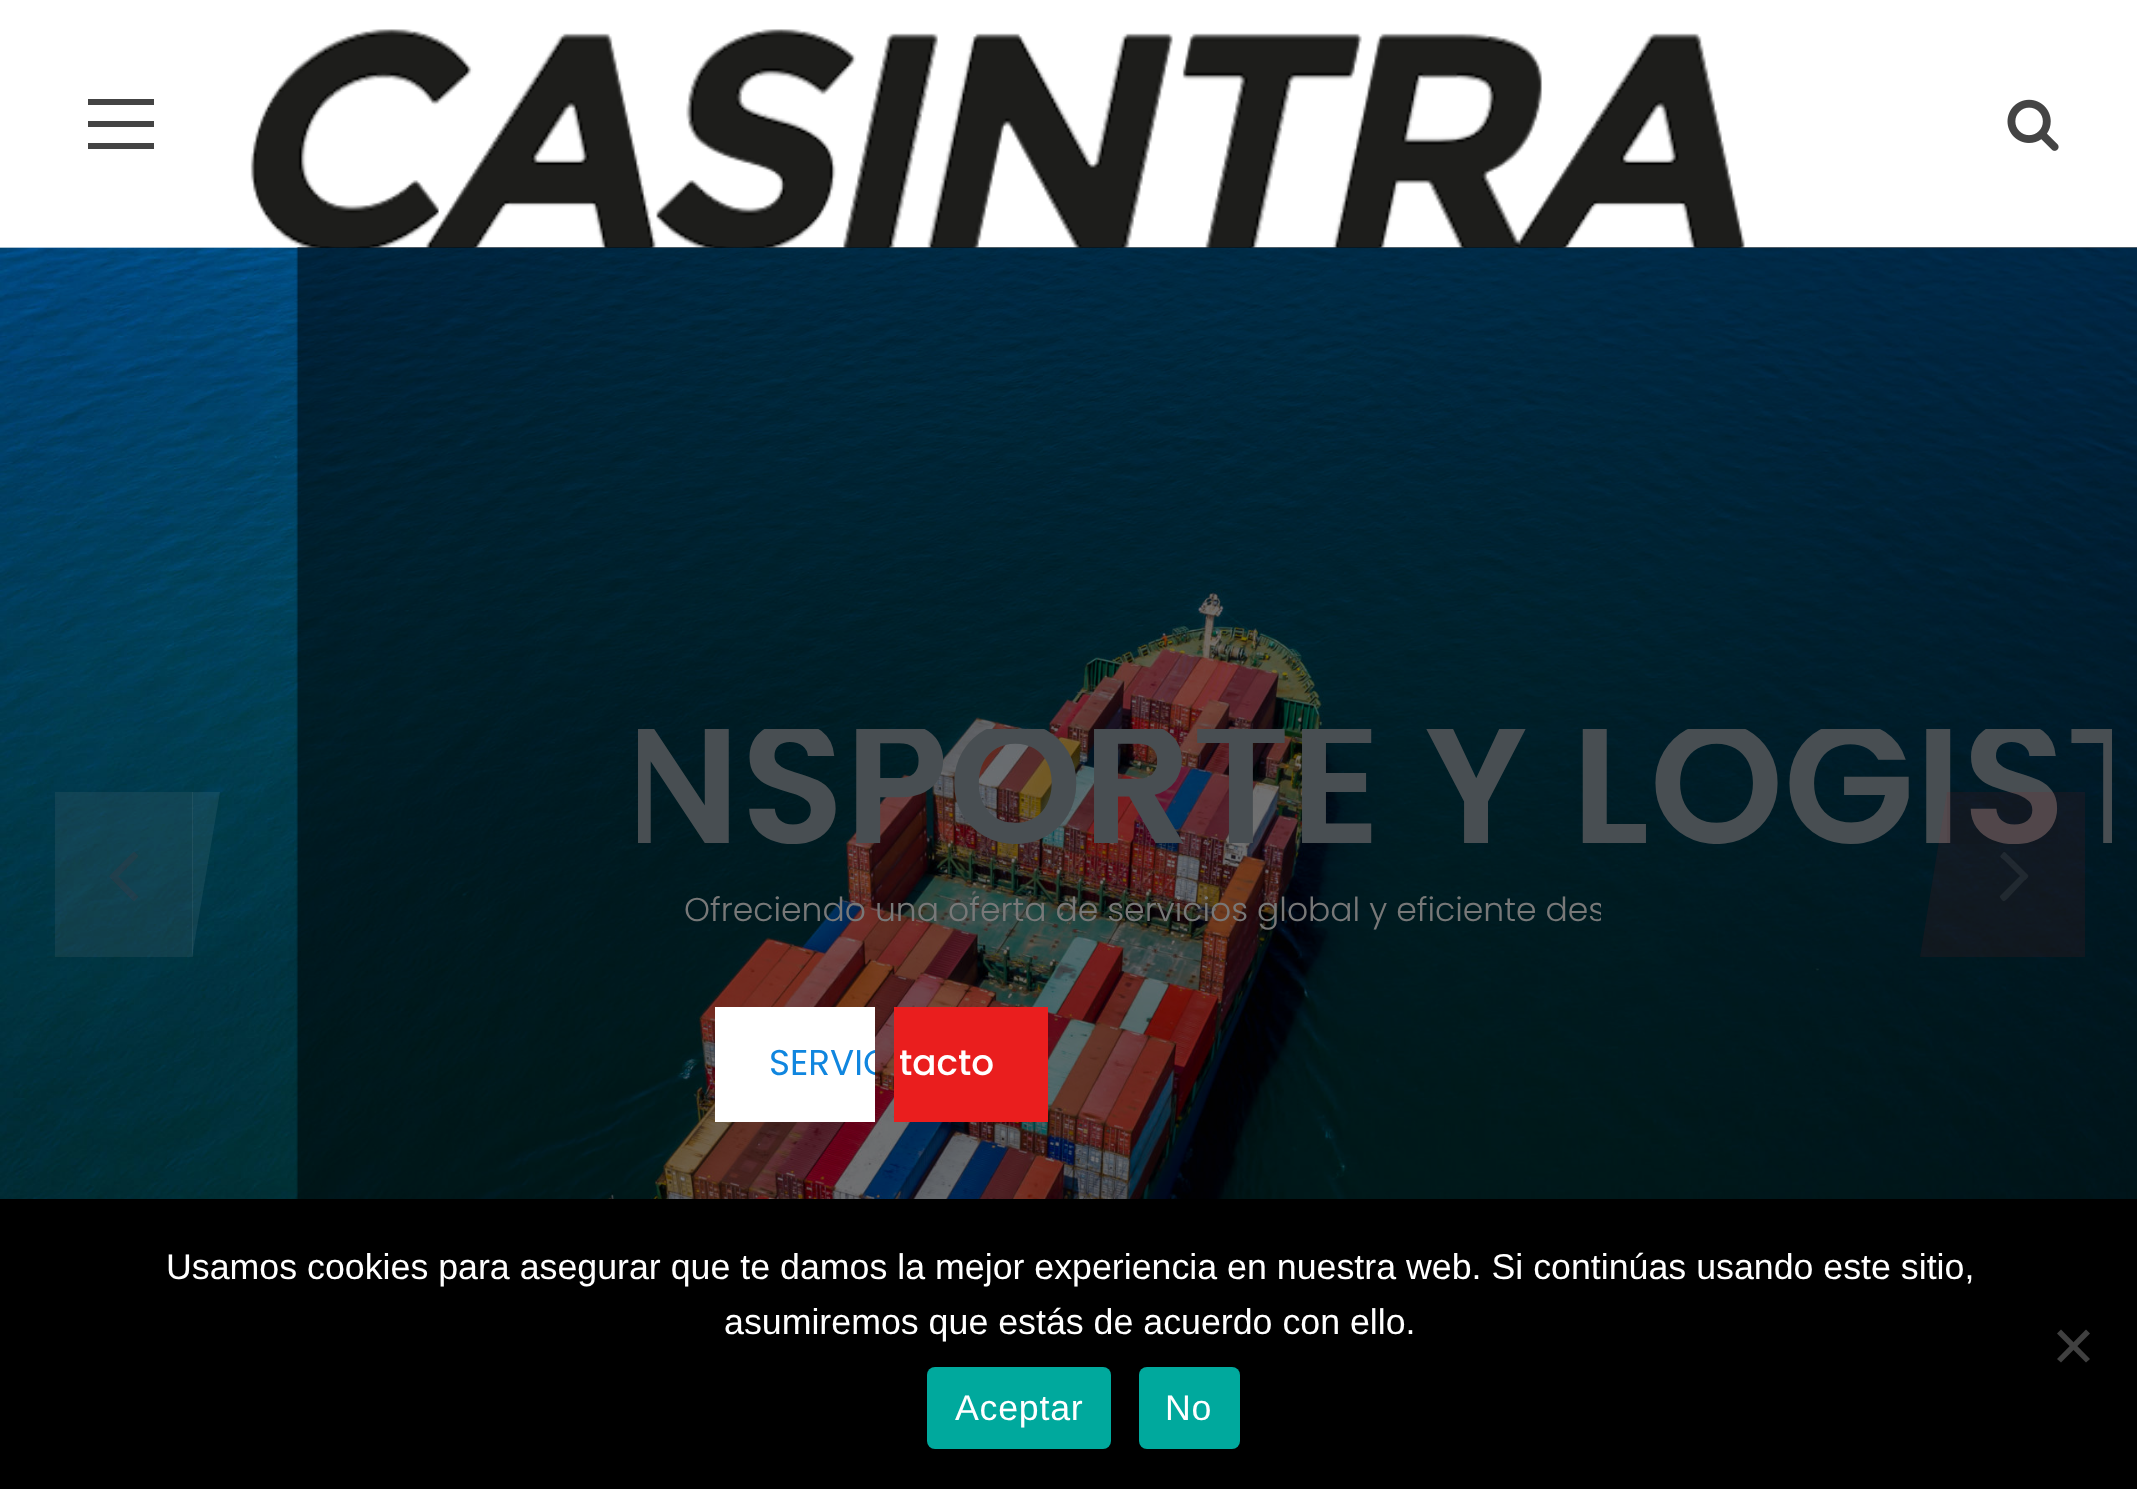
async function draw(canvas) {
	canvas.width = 2137;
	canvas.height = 1489;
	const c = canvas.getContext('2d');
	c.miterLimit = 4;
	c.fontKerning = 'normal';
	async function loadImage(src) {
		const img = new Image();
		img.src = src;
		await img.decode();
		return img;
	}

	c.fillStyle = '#fff';
	c.fillRect(0, 0, 2137, 1489);
	for (const [x, y, w, h, color] of [
		[88, 99, 66, 6, '#444'],
		[88, 121, 66, 6, '#444'],
		[88, 143, 66, 6, '#444'],
	]) {
		c.fillStyle = color;
		c.fillRect(x, y, w, h);
	}
	c.drawImage(await loadImage('img1.png'), 250, 29, 1495, 219);
	c.drawImage(await loadImage('img2.png'), 2007, 99, 52, 52);
	c.drawImage(await loadImage('img4.png'), 0, 247, 2137, 952);
	c.fillStyle = '#0000000a';
	c.fillRect(55, 792, 138, 165);
	c.fillStyle = '#f6f6f612';
	c.fillRect(55, 792, 138, 165);
	c.drawImage(await loadImage('img3.png'), 109, 852, 29, 49);
	c.beginPath();
	c.moveTo(192, 792);
	c.lineTo(220, 792);
	c.lineTo(192, 957);
	c.closePath();
	c.fill();
	c.drawImage(await loadImage('img5.png'), 0, 247, 357, 1);
	c.drawImage(await loadImage('img6.png'), 358, 247, 357, 1);
	c.drawImage(await loadImage('img7.png'), 715, 247, 358, 1);
	c.drawImage(await loadImage('img8.png'), 1072, 247, 358, 1);
	c.drawImage(await loadImage('img9.png'), 1430, 247, 358, 1);
	c.drawImage(await loadImage('img10.png'), 1787, 247, 350, 1);
	c.save();
	c.beginPath();
	c.rect(638, 729, 1474, 115);
	c.clip();
	c.font = '600 170.75px Poppins';
	c.fillStyle = '#9aa7ae';
	c.fillText('NSPORTE Y LOGÍST', 615, 843);
	c.restore();
	c.save();
	c.beginPath();
	c.rect(564, 888, 1037, 42);
	c.clip();
	c.font = '300 33px Poppins';
	c.fillStyle = '#fff';
	c.fillText('Ofreciendo una oferta de servicios global y eficiente des', 684, 921);
	c.restore();
	c.drawImage(await loadImage('img11.png'), 296, 247, 1841, 952);
	c.fillStyle = '#fff';
	c.fillRect(715, 1007, 160, 115);
	c.save();
	c.beginPath();
	c.rect(586, 1007, 289, 115);
	c.clip();
	c.font = '35.75px Poppins';
	c.fillStyle = '#1086df';
	c.fillText('SERVIC', 769, 1075);
	c.restore();
	c.fillStyle = '#ea1e1e';
	c.fillRect(894, 1007, 154, 115);
	c.font = '500 35.75px Poppins';
	c.fillStyle = '#fff';
	c.fillText('tacto', 899, 1075);
	c.fillStyle = '#0000000a';
	c.fillRect(1947, 792, 111, 52);
	c.fillStyle = '#ea1e1e12';
	c.beginPath();
	c.moveTo(1947, 957);
	c.lineTo(1920, 957);
	c.lineTo(1947, 792);
	c.closePath();
	c.fill();
	c.fillRect(1947, 792, 138, 165);
	c.fillStyle = '#ffffff12';
	c.beginPath();
	c.moveTo(2028, 875);
	c.bezierCurveTo(2030, 877, 2024, 881, 2024, 881);
	c.lineTo(2009, 897);
	c.bezierCurveTo(2009, 897, 2005, 902, 2003, 901);
	c.bezierCurveTo(2002, 900, 1999, 897, 2000, 896);
	c.lineTo(2020, 876);
	c.lineTo(2004, 860);
	c.bezierCurveTo(2000, 857, 1999, 857, 2002, 854);
	c.bezierCurveTo(2005, 850, 2005, 853, 2009, 856);
	c.closePath();
	c.fill();
	c.fillStyle = '#000';
	c.fillRect(0, 1199, 2137, 290);
	c.font = '35.75px Liberation Sans';
	c.fillStyle = '#fff';
	c.fillText('Usamos cookies para asegurar que te damos la mejor experiencia en nuestra web. Si continúas usando este sitio,', 166, 1279);
	c.fillText('asumiremos que estás de acuerdo con ello.', 724, 1334);
	c.fillStyle = '#404040';
	c.beginPath();
	c.moveTo(2086, 1329.5);
	c.lineTo(2090, 1333.5);
	c.lineTo(2061, 1362.5);
	c.lineTo(2057, 1359);
	c.closePath();
	c.fill();
	c.beginPath();
	c.moveTo(2057, 1333.5);
	c.lineTo(2061, 1329.5);
	c.lineTo(2090, 1359);
	c.lineTo(2086, 1362.5);
	c.closePath();
	c.fill();
	c.fillStyle = '#00a99d';
	c.beginPath();
	c.roundRect(927, 1367, 184, 82, 8);
	c.fill();
	c.letterSpacing = '0.75px';
	c.fillStyle = '#fff';
	c.fillText('Aceptar', 955, 1420);
	c.fillStyle = '#00a99d';
	c.beginPath();
	c.roundRect(1139, 1367, 101, 82, 8);
	c.fill();
	c.fillStyle = '#fff';
	c.fillText('No', 1165, 1420);
}

draw(document.querySelector('canvas'));
